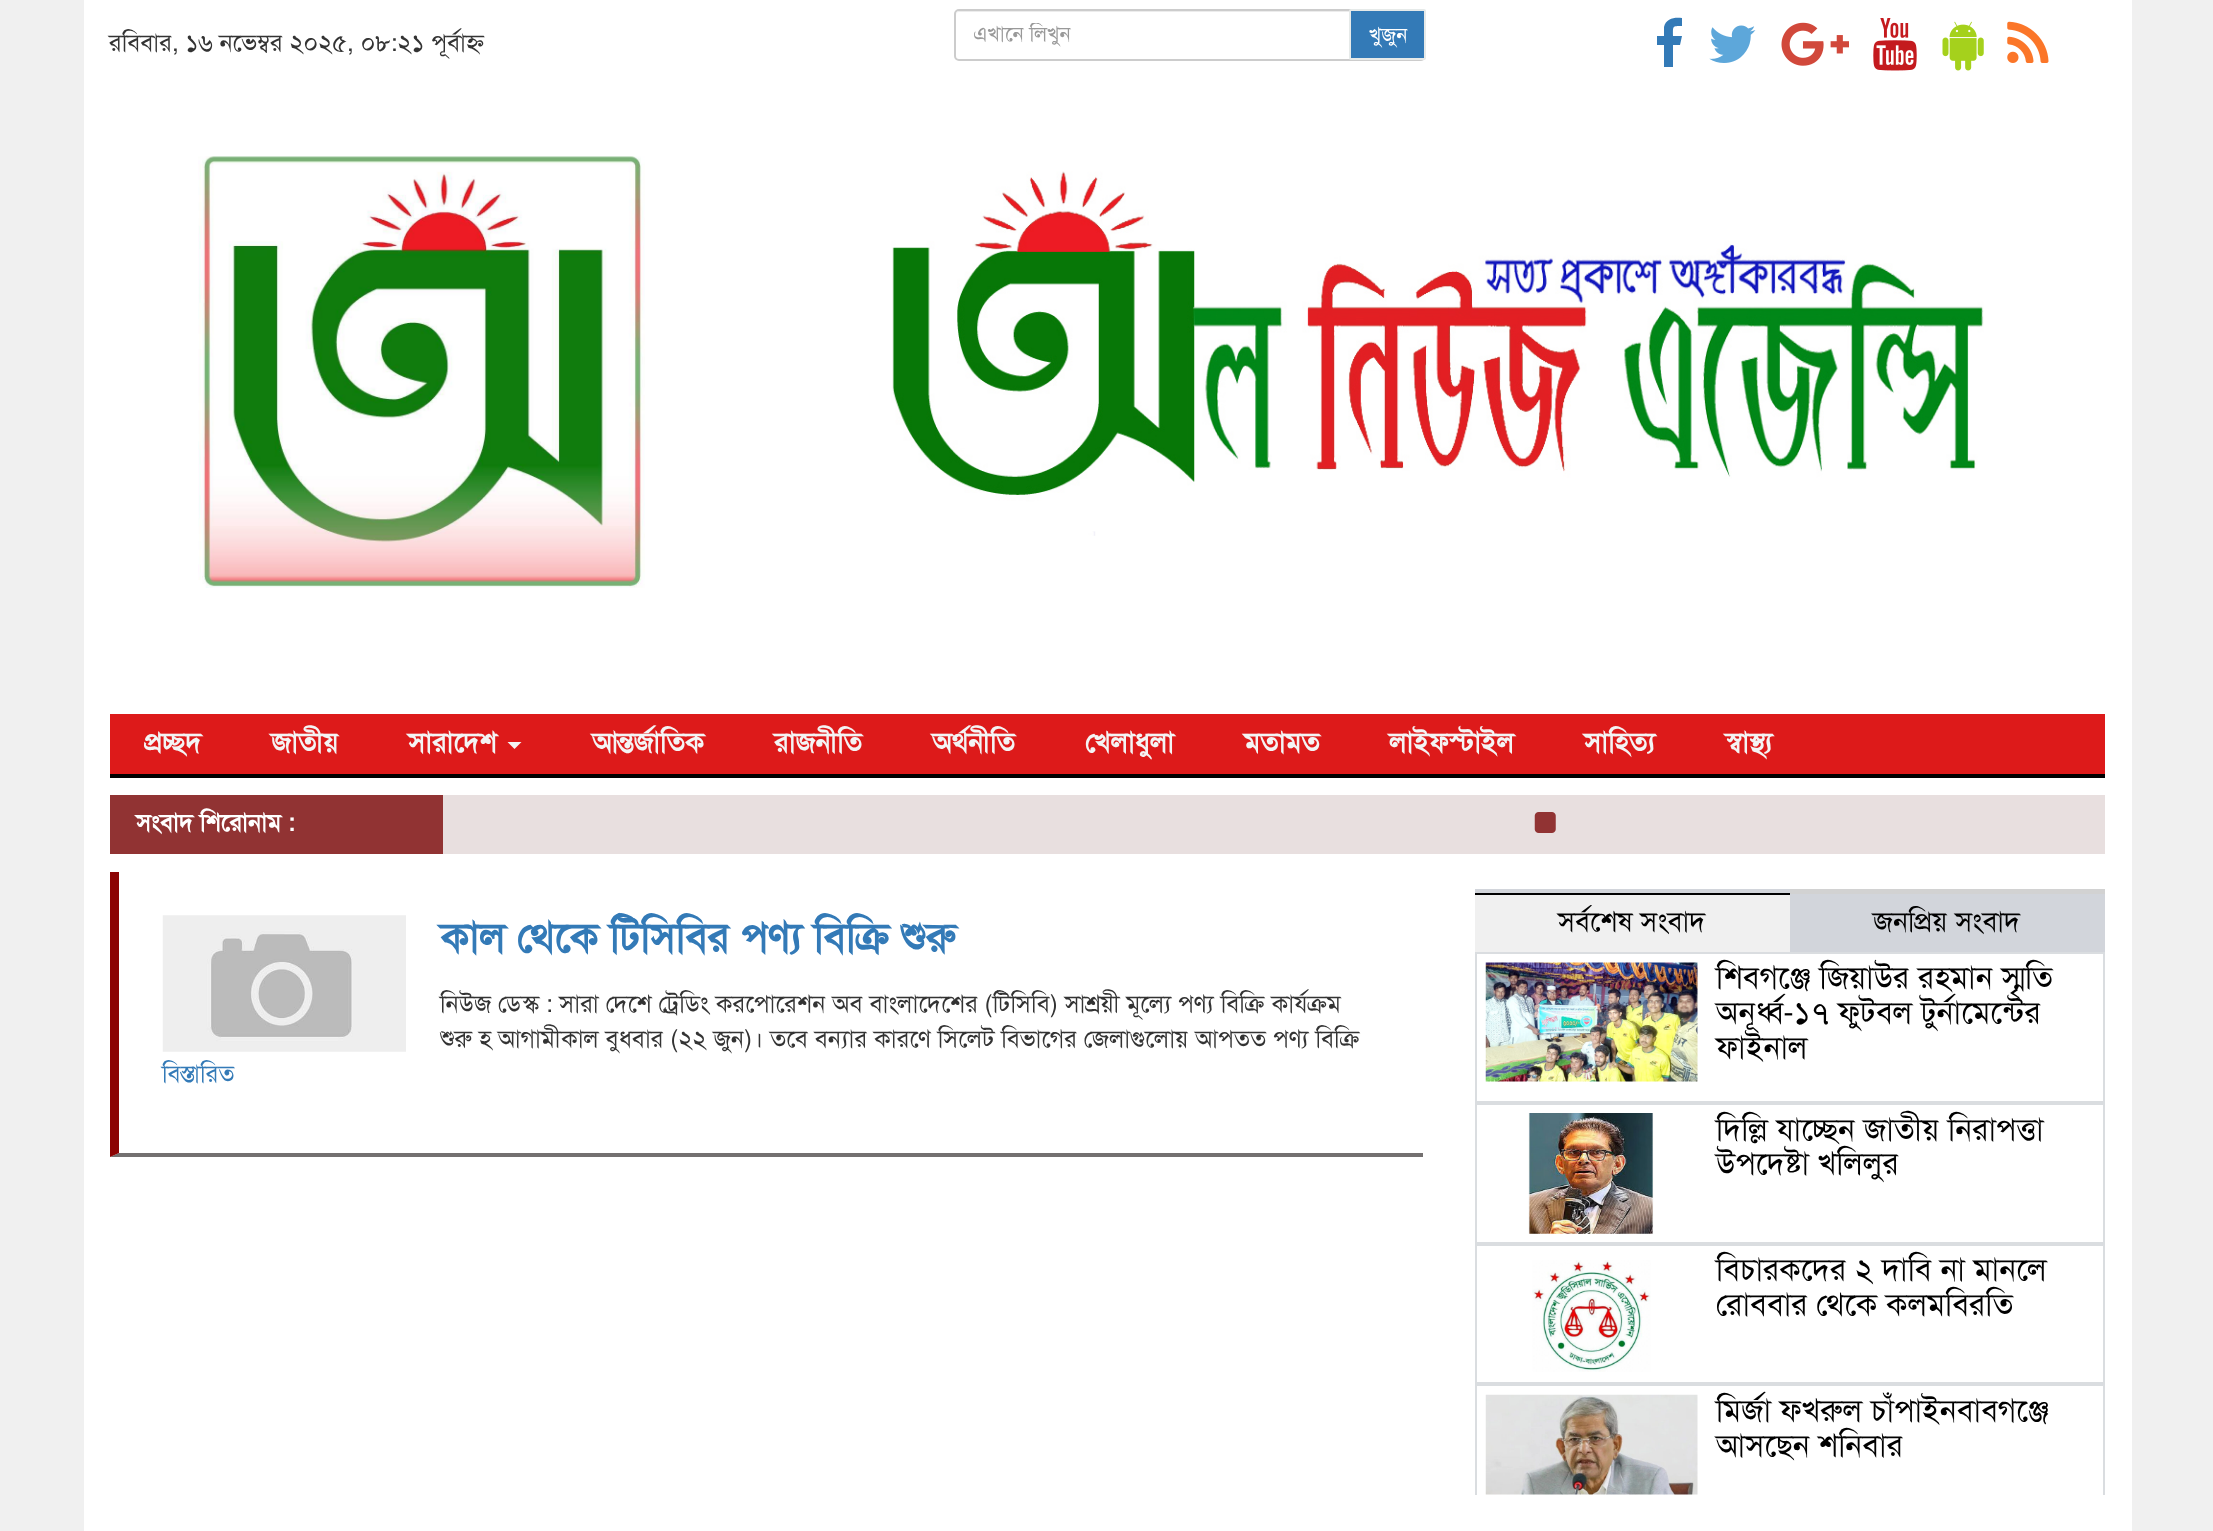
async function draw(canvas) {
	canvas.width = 2213;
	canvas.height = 1531;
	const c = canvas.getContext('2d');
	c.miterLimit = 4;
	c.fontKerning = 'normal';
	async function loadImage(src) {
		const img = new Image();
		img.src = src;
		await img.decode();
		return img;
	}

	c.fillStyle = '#f0f0f0';
	c.fillRect(0, 0, 2213, 1531);
	c.fillStyle = '#fff';
	c.fillRect(84, 0, 2048, 1531);
	c.font = '24.5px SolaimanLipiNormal';
	c.fillStyle = '#333';
	c.fillText('রবিবার, ১৬ নভেম্বর ২০২৫, ০৮:২১ পূর্বাহ্ন', 109, 51);
	c.fillStyle = '#ececec';
	c.beginPath();
	c.moveTo(959, 12);
	c.lineTo(1421, 12);
	c.bezierCurveTo(1423, 12, 1424, 14, 1424, 16);
	c.lineTo(1424, 59);
	c.bezierCurveTo(1425, 58, 1425, 57, 1425, 56);
	c.lineTo(1425, 15);
	c.bezierCurveTo(1425, 13, 1423, 11, 1421, 11);
	c.lineTo(960, 11);
	c.bezierCurveTo(958, 11, 956, 13, 956, 15);
	c.lineTo(956, 16);
	c.bezierCurveTo(956, 14, 957, 12, 959, 12);
	c.closePath();
	c.fill();
	c.beginPath();
	c.roundRect(955, 10, 470, 50, 4);
	c.strokeStyle = '#ccc';
	c.lineWidth = 2;
	c.stroke();
	c.save();
	c.beginPath();
	c.rect(973, 23, 427, 26);
	c.clip();
	c.font = '21px SolaimanLipiNormal';
	c.fillStyle = '#999';
	c.fillText('এখানে লিখুন', 973, 41);
	c.restore();
	c.fillStyle = '#337ab7';
	c.beginPath();
	c.roundRect(1350, 10, 75, 49, 1);
	c.fill();
	c.strokeStyle = '#e6eae9';
	c.stroke();
	c.font = '21px SolaimanLipiNormal';
	c.fillStyle = '#fff';
	c.fillText('খুজুন', 1369, 42);
	c.fillStyle = '#337ab7';
	c.beginPath();
	c.moveTo(1682, 18);
	c.lineTo(1682, 26);
	c.bezierCurveTo(1672, 26, 1673, 26, 1673, 36);
	c.lineTo(1682, 36);
	c.lineTo(1680, 45);
	c.lineTo(1673, 45);
	c.lineTo(1673, 67);
	c.lineTo(1664, 67);
	c.lineTo(1664, 45);
	c.lineTo(1657, 45);
	c.lineTo(1657, 36);
	c.lineTo(1664, 36);
	c.lineTo(1664, 27);
	c.bezierCurveTo(1666, 18, 1675, 17, 1682, 18);
	c.closePath();
	c.fill();
	c.drawImage(await loadImage('img1.png'), 1709, 25, 47, 38);
	c.drawImage(await loadImage('img2.png'), 1781, 22, 68, 44);
	c.drawImage(await loadImage('img3.png'), 1873, 18, 44, 53);
	c.drawImage(await loadImage('img4.png'), 1942, 21, 42, 50);
	c.drawImage(await loadImage('img5.png'), 2007, 21, 42, 42);
	c.drawImage(await loadImage('img6.png'), 198, 156, 447, 432);
	c.drawImage(await loadImage('img7.png'), 891, 171, 1093, 365);
	c.fillStyle = '#dd1a1a';
	c.fillRect(110, 714, 1995, 60);
	c.fillStyle = '#000';
	c.fillRect(110, 774, 1995, 4);
	c.font = 'bold 28px SolaimanLipiNormal';
	c.fillStyle = '#f4f4f4';
	for (const [text, x, y] of [
		['প্রচ্ছদ', 144, 752],
		['জাতীয়', 271, 752],
		['সারাদেশ', 408, 752],
	]) {
		c.fillText(text, x, y);
	}
	c.beginPath();
	c.moveTo(507.5, 742);
	c.lineTo(521.5, 742);
	c.lineTo(514.5, 749);
	c.closePath();
	c.fill();
	for (const [text, x, y] of [
		['আন্তর্জাতিক', 592, 752],
		['রাজনীতি', 774, 752],
		['অর্থনীতি', 932, 752],
		['খেলাধুলা', 1085, 752],
		['মতামত', 1244, 752],
		['লাইফস্টাইল', 1389, 752],
		['সাহিত্য', 1584, 752],
		['স্বাস্থ্য', 1725, 752],
	]) {
		c.fillText(text, x, y);
	}
	c.fillStyle = '#913333';
	c.fillRect(110, 795, 333, 59);
	c.font = 'bold 24.5px SolaimanLipiNormal';
	c.fillStyle = '#fff';
	c.fillText('সংবাদ শিরোনাম :', 136, 831);
	c.fillStyle = '#e8dfdf';
	c.fillRect(443, 795, 1662, 59);
	c.drawImage(await loadImage('img8.png'), 1534, 812, 22, 21);
	c.fillStyle = '#737070';
	c.beginPath();
	c.moveTo(1423, 1157);
	c.lineTo(110, 1157);
	c.lineTo(119, 1153);
	c.lineTo(1423, 1153);
	c.closePath();
	c.fill();
	c.fillStyle = '#8c0303';
	c.beginPath();
	c.moveTo(110, 1157);
	c.lineTo(110, 872);
	c.lineTo(119, 872);
	c.lineTo(119, 1153);
	c.closePath();
	c.fill();
	c.drawImage(await loadImage('img9.png'), 162, 915, 244, 137);
	c.font = 'bold 42px SolaimanLipiNormal';
	c.fillStyle = '#337ab7';
	c.fillText('কাল থেকে টিসিবির পণ্য বিক্রি শুরু', 440, 952);
	c.font = '24.5px SolaimanLipiNormal';
	c.fillStyle = '#333';
	c.fillText('নিউজ ডেস্ক : সারা দেশে ট্রেডিং করপোরেশন অব বাংলাদেশের (টিসিবি) সাশ্রয়ী মূল্যে পণ্য বিক্রি কার্যক্রম', 440, 1012);
	c.fillText('শুরু হ আগামীকাল বুধবার (২২ জুন)। তবে বন্যার কারণে সিলেট বিভাগের জেলাগুলোয় আপতত পণ্য বিক্রি', 440, 1047);
	c.fillStyle = '#337ab7';
	c.fillText('বিস্তারিত', 162, 1082);
	for (const [x, y, w, h, color] of [
		[1475, 889, 630, 63, '#d2d5db'],
		[1475, 895, 315, 57, '#f0f0f0'],
		[1475, 893, 315, 2, '#000'],
	]) {
		c.fillStyle = color;
		c.fillRect(x, y, w, h);
	}
	c.font = '28px SolaimanLipiNormal';
	c.fillText('সর্বশেষ সংবাদ', 1558, 931);
	c.fillStyle = '#d2d2d2';
	c.fillRect(1790, 889, 315, 5);
	c.fillStyle = '#000';
	c.fillText('জনপ্রিয় সংবাদ', 1873, 931);
	c.strokeStyle = '#dadde0';
	c.strokeRect(1476, 953, 628, 149);
	c.drawImage(await loadImage('img10.png'), 1485, 962, 213, 120);
	c.font = '31.5px SolaimanLipiNormal';
	for (const [text, x, y] of [
		['শিবগঞ্জে জিয়াউর রহমান স্মৃতি', 1716, 988],
		['অনূর্ধ্ব-১৭ ফুটবল টুর্নামেন্টের', 1716, 1023],
		['ফাইনাল', 1716, 1058],
	]) {
		c.fillText(text, x, y);
	}
	c.strokeRect(1476, 1104, 628, 139);
	c.drawImage(await loadImage('img11.png'), 1528, 1113, 126, 121);
	c.fillText('দিল্লি যাচ্ছেন জাতীয় নিরাপত্তা', 1716, 1140);
	c.fillText('উপদেষ্টা খলিলুর', 1716, 1174);
	c.strokeRect(1476, 1245, 628, 138);
	c.drawImage(await loadImage('img12.png'), 1532, 1260, 119, 112);
	c.fillText('বিচারকদের ২ দাবি না মানলে', 1716, 1280);
	c.fillText('রোববার থেকে কলমবিরতি', 1716, 1315);
	c.save();
	c.beginPath();
	c.rect(1475, 952, 630, 543);
	c.clip();
	c.strokeRect(1476, 1385, 628, 138);
	c.restore();
	c.drawImage(await loadImage('img13.png'), 1485, 1394, 213, 101);
	c.fillText('মির্জা ফখরুল চাঁপাইনবাবগঞ্জে', 1716, 1421);
	c.fillText('আসছেন শনিবার', 1716, 1456);
}

draw(document.querySelector('canvas'));
